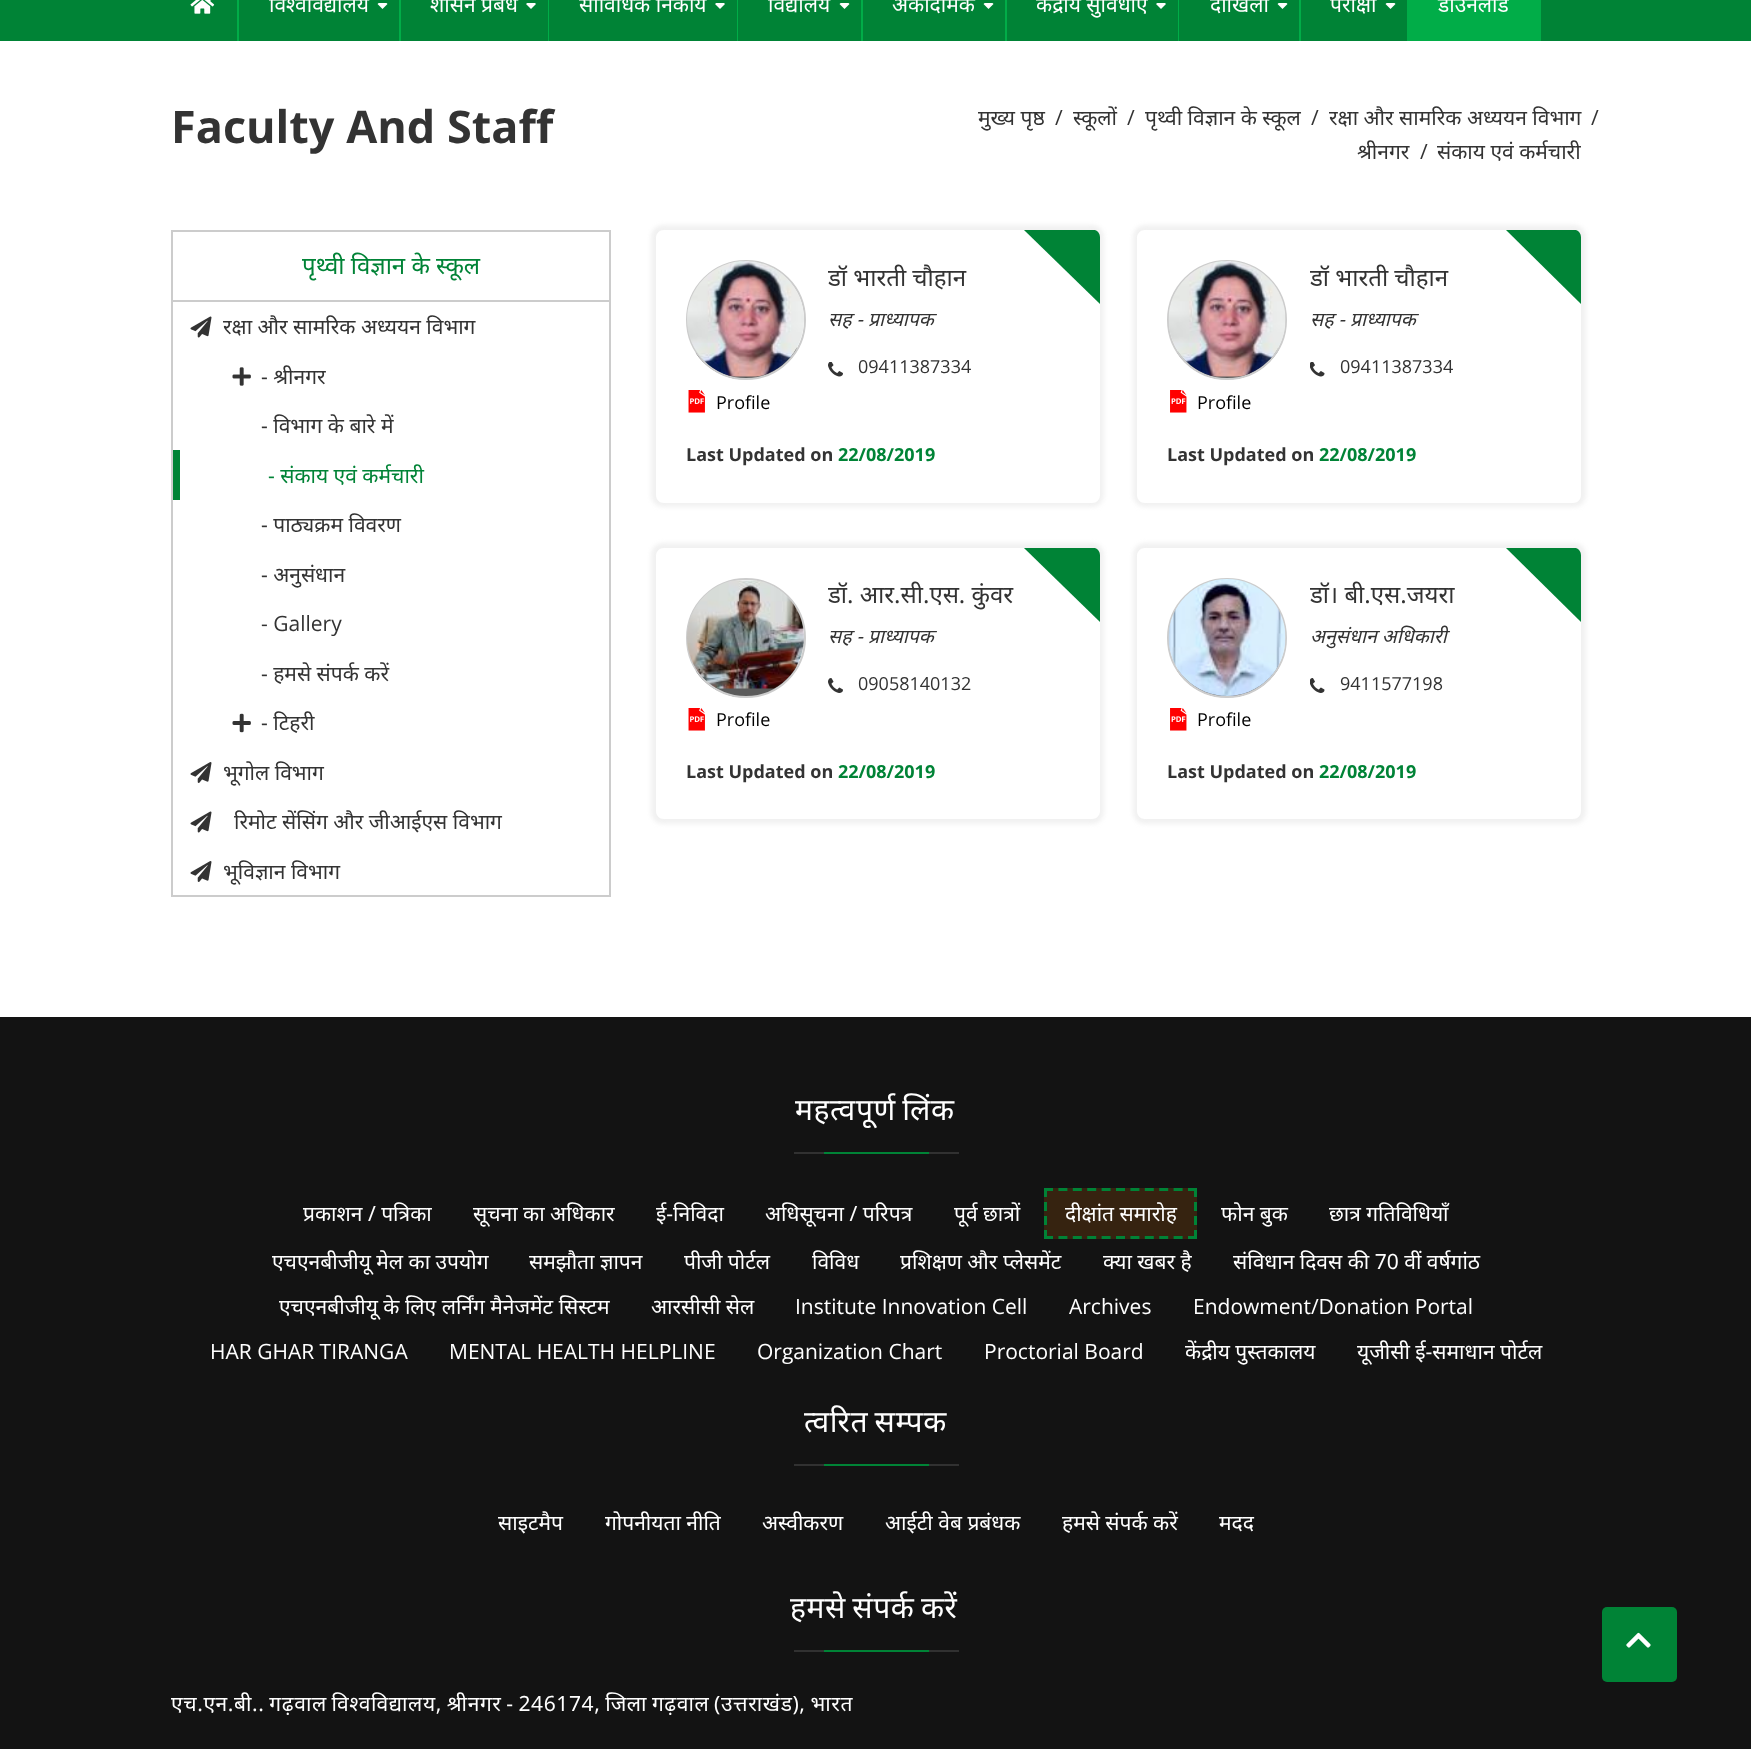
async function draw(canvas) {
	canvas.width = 1751;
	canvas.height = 1749;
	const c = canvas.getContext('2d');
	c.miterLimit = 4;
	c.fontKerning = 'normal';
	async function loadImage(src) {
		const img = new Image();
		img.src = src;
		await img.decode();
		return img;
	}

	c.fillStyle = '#fff';
	c.fillRect(0, 0, 1751, 1749);
	c.fillStyle = '#008336';
	c.fillRect(0, 0, 1751, 41);
	c.fillStyle = '#01ad48';
	c.fillRect(237, 0, 2, 41);
	c.drawImage(await loadImage('img1.png'), 190, 0, 25, 14);
	c.fillRect(399, 0, 2, 41);
	c.font = '21px Noto Sans';
	c.fillStyle = '#fff';
	c.fillText('विश्वविद्यालय', 269, 12);
	c.beginPath();
	c.moveTo(379.5, 3);
	c.bezierCurveTo(378.5, 3, 378, 3.5, 377.5, 4);
	c.lineTo(382.5, 9);
	c.lineTo(387.5, 4);
	c.lineTo(386.5, 3);
	c.closePath();
	c.fill();
	c.fillStyle = '#01ad48';
	c.fillRect(548, 0, 1, 41);
	c.fillStyle = '#fff';
	c.fillText('शासन प्रबंध', 430, 12);
	c.beginPath();
	c.moveTo(528, 3);
	c.bezierCurveTo(527, 3, 526.5, 3.5, 526, 4);
	c.lineTo(531, 9);
	c.lineTo(536, 4);
	c.lineTo(535, 3);
	c.closePath();
	c.fill();
	c.fillStyle = '#01ad48';
	c.fillRect(737, 0, 1, 41);
	c.fillStyle = '#fff';
	c.fillText('सांविधिक निकाय', 579, 12);
	c.beginPath();
	c.moveTo(717, 3);
	c.bezierCurveTo(716, 3, 715.5, 3.5, 715, 4);
	c.lineTo(720, 9);
	c.lineTo(725, 4);
	c.lineTo(724, 3);
	c.closePath();
	c.fill();
	c.fillStyle = '#01ad48';
	c.fillRect(861, 0, 2, 41);
	c.fillStyle = '#fff';
	c.fillText('विद्यालय', 768, 12);
	c.beginPath();
	c.moveTo(841.5, 3);
	c.bezierCurveTo(840.5, 3, 840, 3.5, 839.5, 4);
	c.lineTo(844.5, 9);
	c.lineTo(849.5, 4);
	c.lineTo(848.5, 3);
	c.closePath();
	c.fill();
	c.fillStyle = '#01ad48';
	c.fillRect(1005, 0, 2, 41);
	c.fillStyle = '#fff';
	c.fillText('अकादमिक', 892, 12);
	c.beginPath();
	c.moveTo(985.5, 3);
	c.bezierCurveTo(984.5, 3, 984, 3.5, 983.5, 4);
	c.lineTo(988.5, 9);
	c.lineTo(993.5, 4);
	c.lineTo(992.5, 3);
	c.closePath();
	c.fill();
	c.fillStyle = '#01ad48';
	c.fillRect(1178, 0, 1, 41);
	c.fillStyle = '#fff';
	c.fillText('केंद्रीय सुविधाएं', 1036, 12);
	c.beginPath();
	c.moveTo(1158, 3);
	c.bezierCurveTo(1157, 3, 1156.5, 3.5, 1156, 4);
	c.lineTo(1161, 9);
	c.lineTo(1166, 4);
	c.lineTo(1165, 3);
	c.closePath();
	c.fill();
	c.fillStyle = '#01ad48';
	c.fillRect(1299, 0, 2, 41);
	c.fillStyle = '#fff';
	c.fillText('दाखिला', 1210, 12);
	c.beginPath();
	c.moveTo(1279.5, 3);
	c.bezierCurveTo(1278.5, 3, 1278, 3.5, 1277.5, 4);
	c.lineTo(1282.5, 9);
	c.lineTo(1287.5, 4);
	c.lineTo(1286.5, 3);
	c.closePath();
	c.fill();
	c.fillStyle = '#01ad48';
	c.fillRect(1407, 0, 2, 41);
	c.fillStyle = '#fff';
	c.fillText('परीक्षा', 1330, 12);
	c.beginPath();
	c.moveTo(1387.5, 3);
	c.bezierCurveTo(1386.5, 3, 1386, 3.5, 1385.5, 4);
	c.lineTo(1390.5, 9);
	c.lineTo(1395.5, 4);
	c.lineTo(1394.5, 3);
	c.closePath();
	c.fill();
	c.fillStyle = '#01ad48';
	c.fillRect(1409, 0, 132, 41);
	c.fillStyle = '#fff';
	c.fillText('डाउनलोड', 1438, 12);
	c.font = 'bold 45px Open Sans';
	c.fillStyle = '#333';
	c.fillText('Faculty And Staff', 171, 143);
	c.font = '21px Noto Sans';
	c.fillText('मुख्य पृष्ठ', 978, 125);
	c.font = '21px Open Sans';
	c.fillText('/', 1055, 125);
	c.font = '21px Noto Sans';
	c.fillText('स्कूलों', 1073, 125);
	c.font = '21px Open Sans';
	c.fillText('/', 1127, 125);
	c.font = '21px Noto Sans';
	c.fillText('पृथ्वी विज्ञान के स्कूल', 1145, 125);
	c.font = '21px Open Sans';
	c.fillText('/', 1311, 125);
	c.font = '21px Noto Sans';
	c.fillText('रक्षा और सामरिक अध्ययन विभाग', 1329, 125);
	c.font = '21px Open Sans';
	c.fillText('/', 1591, 125);
	c.font = '21px Noto Sans';
	c.fillText('श्रीनगर', 1357, 159);
	c.font = '21px Open Sans';
	c.fillText('/', 1420, 159);
	c.font = '21px Noto Sans';
	c.fillText('संकाय एवं कर्मचारी', 1437, 159);
	c.strokeStyle = '#ccc';
	c.lineWidth = 2;
	c.strokeRect(172, 231, 438, 665);
	c.fillStyle = '#ccc';
	c.fillRect(173, 300, 436, 2);
	c.font = '24px Noto Sans';
	c.fillStyle = '#008336';
	c.fillText('पृथ्वी विज्ञान के स्कूल', 302, 274);
	c.drawImage(await loadImage('img2.png'), 190, 316, 22, 22);
	c.font = '21px Noto Sans';
	c.fillStyle = '#333';
	c.fillText('रक्षा और सामरिक अध्ययन विभाग', 223, 334);
	c.drawImage(await loadImage('img3.png'), 232, 367, 19, 19);
	c.fillText('- श्रीनगर', 261, 384);
	c.fillText('- विभाग के बारे में', 261, 433);
	c.fillStyle = '#008336';
	c.fillRect(173, 450, 7, 50);
	c.fillText('- संकाय एवं कर्मचारी', 268, 483);
	c.fillStyle = '#333';
	c.fillText('- पाठ्यक्रम विवरण', 261, 532);
	c.fillText('- अनुसंधान', 261, 582);
	c.font = '21px Open Sans';
	c.fillText('- Gallery', 261, 631);
	c.font = '21px Noto Sans';
	c.fillText('- हमसे संपर्क करें', 261, 681);
	c.drawImage(await loadImage('img4.png'), 232, 713, 19, 20);
	c.fillText('- टिहरी', 261, 730);
	c.drawImage(await loadImage('img5.png'), 190, 762, 22, 21);
	c.fillText('भूगोल विभाग', 223, 780);
	c.drawImage(await loadImage('img2.png'), 190, 811, 22, 22);
	c.fillText('रिमोट सेंसिंग और जीआईएस विभाग', 234, 829);
	c.drawImage(await loadImage('img5.png'), 190, 861, 22, 21);
	c.fillText('भूविज्ञान विभाग', 223, 879);
	c.save();
	c.beginPath();
	c.moveTo(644, 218);
	c.lineTo(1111, 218);
	c.lineTo(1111, 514);
	c.lineTo(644, 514);
	c.closePath();
	c.moveTo(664, 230);
	c.lineTo(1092, 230);
	c.bezierCurveTo(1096.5, 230, 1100, 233.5, 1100, 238);
	c.lineTo(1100, 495);
	c.bezierCurveTo(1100, 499.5, 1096.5, 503, 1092, 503);
	c.lineTo(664, 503);
	c.bezierCurveTo(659.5, 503, 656, 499.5, 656, 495);
	c.lineTo(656, 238);
	c.bezierCurveTo(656, 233.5, 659.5, 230, 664, 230);
	c.closePath();
	c.clip('evenodd');
	c.fillStyle = '#f1f1f1';
	c.filter = 'blur(2px)';
	c.beginPath();
	c.roundRect(651, 225, 453, 282, 12);
	c.fill();
	c.filter = 'none';
	c.restore();
	c.drawImage(await loadImage('img6.png'), 695, 347, 102, 33);
	c.beginPath();
	c.arc(746, 320, 59, 0, 2 * Math.PI);
	c.stroke();
	c.drawImage(await loadImage('img7.png'), 687, 261, 117, 116);
	c.save();
	c.beginPath();
	c.rect(828, 260, 242, 34);
	c.clip();
	c.font = '24px Noto Sans';
	c.fillText('डॉ भारती चौहान', 828, 286);
	c.restore();
	c.fillStyle = '#008336';
	c.beginPath();
	c.moveTo(1024, 230);
	c.lineTo(1095, 230);
	c.bezierCurveTo(1098, 231, 1100, 234, 1100, 237);
	c.lineTo(1100, 304);
	c.closePath();
	c.fill();
	c.font = 'italic 19.5px Noto Sans';
	c.fillStyle = '#333';
	c.fillText('सह - प्राध्यापक', 828, 326);
	c.drawImage(await loadImage('img8.png'), 828, 362, 15, 15);
	c.font = '18px Open Sans';
	c.fillText('09411387334', 858, 373);
	c.drawImage(await loadImage('img9.png'), 688, 390, 17, 23);
	c.fillStyle = '#000';
	c.fillText('Profile', 716, 409);
	c.font = 'bold 18px Open Sans';
	c.fillStyle = '#333';
	c.fillText('Last Updated on', 686, 461);
	c.fillStyle = '#008336';
	c.fillText('22/08/2019', 838, 461);
	c.save();
	c.beginPath();
	c.moveTo(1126, 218);
	c.lineTo(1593, 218);
	c.lineTo(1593, 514);
	c.lineTo(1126, 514);
	c.closePath();
	c.moveTo(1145, 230);
	c.lineTo(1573, 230);
	c.bezierCurveTo(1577.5, 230, 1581, 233.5, 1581, 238);
	c.lineTo(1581, 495);
	c.bezierCurveTo(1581, 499.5, 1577.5, 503, 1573, 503);
	c.lineTo(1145, 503);
	c.bezierCurveTo(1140.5, 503, 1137, 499.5, 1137, 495);
	c.lineTo(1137, 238);
	c.bezierCurveTo(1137, 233.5, 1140.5, 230, 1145, 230);
	c.closePath();
	c.clip('evenodd');
	c.fillStyle = '#f1f1f1';
	c.filter = 'blur(2px)';
	c.beginPath();
	c.roundRect(1133, 225, 453, 282, 12);
	c.fill();
	c.filter = 'none';
	c.restore();
	c.drawImage(await loadImage('img10.png'), 1177, 348, 102, 32);
	c.beginPath();
	c.arc(1227, 320, 59, 0, 2 * Math.PI);
	c.stroke();
	c.drawImage(await loadImage('img11.png'), 1168, 261, 118, 116);
	c.save();
	c.beginPath();
	c.rect(1310, 260, 241, 34);
	c.clip();
	c.font = '24px Noto Sans';
	c.fillStyle = '#333';
	c.fillText('डॉ भारती चौहान', 1310, 286);
	c.restore();
	c.beginPath();
	c.moveTo(1506, 230);
	c.lineTo(1581, 304);
	c.lineTo(1581, 237);
	c.bezierCurveTo(1581, 234, 1579, 231, 1576, 230);
	c.closePath();
	c.fill();
	c.font = 'italic 19.5px Noto Sans';
	c.fillStyle = '#333';
	c.fillText('सह - प्राध्यापक', 1310, 326);
	c.drawImage(await loadImage('img12.png'), 1310, 362, 15, 15);
	c.font = '18px Open Sans';
	c.fillText('09411387334', 1340, 373);
	c.drawImage(await loadImage('img13.png'), 1170, 390, 17, 23);
	c.fillStyle = '#000';
	c.fillText('Profile', 1197, 409);
	c.font = 'bold 18px Open Sans';
	c.fillStyle = '#333';
	c.fillText('Last Updated on', 1167, 461);
	c.fillStyle = '#008336';
	c.fillText('22/08/2019', 1319, 461);
	c.save();
	c.beginPath();
	c.moveTo(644, 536);
	c.lineTo(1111, 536);
	c.lineTo(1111, 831);
	c.lineTo(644, 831);
	c.closePath();
	c.moveTo(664, 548);
	c.lineTo(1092, 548);
	c.bezierCurveTo(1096.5, 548, 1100, 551.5, 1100, 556);
	c.lineTo(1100, 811);
	c.bezierCurveTo(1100, 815.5, 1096.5, 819, 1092, 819);
	c.lineTo(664, 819);
	c.bezierCurveTo(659.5, 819, 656, 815.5, 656, 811);
	c.lineTo(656, 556);
	c.bezierCurveTo(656, 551.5, 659.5, 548, 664, 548);
	c.closePath();
	c.clip('evenodd');
	c.fillStyle = '#f1f1f1';
	c.filter = 'blur(2px)';
	c.beginPath();
	c.roundRect(651, 543, 453, 281, 12);
	c.fill();
	c.filter = 'none';
	c.restore();
	c.drawImage(await loadImage('img6.png'), 695, 665, 102, 33);
	c.beginPath();
	c.arc(746, 638, 59, 0, 2 * Math.PI);
	c.stroke();
	c.drawImage(await loadImage('img14.png'), 687, 580, 117, 109);
	c.save();
	c.beginPath();
	c.rect(828, 578, 242, 34);
	c.clip();
	c.font = '24px Noto Sans';
	c.fillStyle = '#333';
	c.fillText('डॉ. आर.सी.एस. कुंवर', 828, 603);
	c.restore();
	c.beginPath();
	c.moveTo(1024, 548);
	c.lineTo(1095, 548);
	c.bezierCurveTo(1098, 549, 1100, 552, 1100, 555);
	c.lineTo(1100, 622);
	c.closePath();
	c.fill();
	c.font = 'italic 19.5px Noto Sans';
	c.fillStyle = '#333';
	c.fillText('सह - प्राध्यापक', 828, 643);
	c.drawImage(await loadImage('img15.png'), 828, 678, 15, 15);
	c.font = '18px Open Sans';
	c.fillText('09058140132', 858, 690);
	c.drawImage(await loadImage('img9.png'), 688, 708, 17, 23);
	c.fillStyle = '#000';
	c.fillText('Profile', 716, 726);
	c.font = 'bold 18px Open Sans';
	c.fillStyle = '#333';
	c.fillText('Last Updated on', 686, 778);
	c.fillStyle = '#008336';
	c.fillText('22/08/2019', 838, 778);
	c.save();
	c.beginPath();
	c.moveTo(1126, 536);
	c.lineTo(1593, 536);
	c.lineTo(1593, 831);
	c.lineTo(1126, 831);
	c.closePath();
	c.moveTo(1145, 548);
	c.lineTo(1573, 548);
	c.bezierCurveTo(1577.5, 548, 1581, 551.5, 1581, 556);
	c.lineTo(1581, 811);
	c.bezierCurveTo(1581, 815.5, 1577.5, 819, 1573, 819);
	c.lineTo(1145, 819);
	c.bezierCurveTo(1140.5, 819, 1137, 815.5, 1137, 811);
	c.lineTo(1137, 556);
	c.bezierCurveTo(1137, 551.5, 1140.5, 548, 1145, 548);
	c.closePath();
	c.clip('evenodd');
	c.fillStyle = '#f1f1f1';
	c.filter = 'blur(2px)';
	c.beginPath();
	c.roundRect(1133, 543, 453, 281, 12);
	c.fill();
	c.filter = 'none';
	c.restore();
	c.drawImage(await loadImage('img10.png'), 1177, 666, 102, 32);
	c.beginPath();
	c.arc(1227, 638, 59, 0, 2 * Math.PI);
	c.stroke();
	c.drawImage(await loadImage('img16.png'), 1168, 579, 118, 117);
	c.save();
	c.beginPath();
	c.rect(1310, 578, 241, 34);
	c.clip();
	c.font = '24px Noto Sans';
	c.fillStyle = '#333';
	c.fillText('डॉ। बी.एस.जयरा', 1310, 603);
	c.restore();
	c.beginPath();
	c.moveTo(1506, 548);
	c.lineTo(1581, 622);
	c.lineTo(1581, 555);
	c.bezierCurveTo(1581, 552, 1579, 549, 1576, 548);
	c.closePath();
	c.fill();
	c.font = 'italic 19.5px Noto Sans';
	c.fillStyle = '#333';
	c.fillText('अनुसंधान अधिकारी', 1310, 643);
	c.drawImage(await loadImage('img17.png'), 1310, 678, 15, 15);
	c.font = '18px Open Sans';
	c.fillText('9411577198', 1340, 690);
	c.drawImage(await loadImage('img13.png'), 1170, 708, 17, 23);
	c.fillStyle = '#000';
	c.fillText('Profile', 1197, 726);
	c.font = 'bold 18px Open Sans';
	c.fillStyle = '#333';
	c.fillText('Last Updated on', 1167, 778);
	c.fillStyle = '#008336';
	c.fillText('22/08/2019', 1319, 778);
	c.fillStyle = '#131313';
	c.fillRect(0, 1017, 1751, 732);
	c.letterSpacing = '0.6px';
	c.wordSpacing = '-2px';
	c.font = '30px Noto Sans';
	c.fillStyle = '#fff';
	c.fillText('महत्वपूर्ण लिंक', 795, 1120);
	c.fillStyle = '#313131';
	c.fillRect(794, 1152, 165, 2);
	c.fillStyle = '#008336';
	c.fillRect(824, 1152, 105, 2);
	c.letterSpacing = '0px';
	c.wordSpacing = '0px';
	c.font = '21px Noto Sans';
	c.fillStyle = '#fff';
	for (const [text, x, y] of [
		['प्रकाशन / पत्रिका', 303, 1221],
		['सूचना का अधिकार', 473, 1221],
		['ई-निविदा', 656, 1221],
		['अधिसूचना / परिपत्र', 765, 1221],
		['पूर्व छात्रों', 954, 1221],
	]) {
		c.fillText(text, x, y);
	}
	c.fillStyle = '#362310';
	c.fillRect(1044, 1188, 153, 51);
	c.beginPath();
	c.moveTo(1044, 1189.5);
	c.lineTo(1197, 1189.5);
	c.strokeStyle = '#008336';
	c.lineWidth = 3;
	c.setLineDash([9, 5.4]);
	c.stroke();
	c.beginPath();
	c.moveTo(1195.5, 1188);
	c.lineTo(1195.5, 1239);
	c.setLineDash([9, 5]);
	c.stroke();
	c.beginPath();
	c.moveTo(1044, 1237.5);
	c.lineTo(1197, 1237.5);
	c.setLineDash([9, 5.4]);
	c.stroke();
	c.beginPath();
	c.moveTo(1045.5, 1188);
	c.lineTo(1045.5, 1239);
	c.setLineDash([9, 5]);
	c.stroke();
	c.fillStyle = '#fff';
	for (const [text, x, y] of [
		['दीक्षांत समारोह', 1065, 1221],
		['फोन बुक', 1221, 1221],
		['छात्र गतिविधियाँ', 1329, 1221],
		['एचएनबीजीयू मेल का उपयोग', 272, 1269],
		['समझौता ज्ञापन', 529, 1269],
		['पीजी पोर्टल', 684, 1269],
		['विविध', 812, 1269],
		['प्रशिक्षण और प्लेसमेंट', 900, 1269],
		['क्या खबर है', 1103, 1269],
		['संविधान दिवस की 70 वीं वर्षगांठ', 1233, 1269],
		['एचएनबीजीयू के लिए लर्निंग मैनेजमेंट सिस्टम', 279, 1314],
		['आरसीसी सेल', 651, 1314],
	]) {
		c.fillText(text, x, y);
	}
	c.font = '21px Open Sans';
	for (const [text, x, y] of [
		['Institute Innovation Cell', 795, 1314],
		['Archives', 1069, 1314],
		['Endowment/Donation Portal', 1193, 1314],
		['HAR GHAR TIRANGA', 210, 1359],
		['MENTAL HEALTH HELPLINE', 449, 1359],
		['Organization Chart', 757, 1359],
		['Proctorial Board', 984, 1359],
	]) {
		c.fillText(text, x, y);
	}
	c.font = '21px Noto Sans';
	c.fillText('केंद्रीय पुस्तकालय', 1185, 1359);
	c.fillText('यूजीसी ई-समाधान पोर्टल', 1357, 1359);
	c.letterSpacing = '0.6px';
	c.wordSpacing = '-2px';
	c.font = '30px Noto Sans';
	c.fillText('त्वरित सम्पक', 804, 1432);
	c.fillStyle = '#313131';
	c.fillRect(794, 1464, 165, 2);
	c.fillStyle = '#008336';
	c.fillRect(824, 1464, 105, 2);
	c.letterSpacing = '0px';
	c.wordSpacing = '0px';
	c.font = '21px Noto Sans';
	c.fillStyle = '#fff';
	for (const [text, x, y] of [
		['साइटमैप', 498, 1530],
		['गोपनीयता नीति', 605, 1530],
		['अस्वीकरण', 762, 1530],
		['आईटी वेब प्रबंधक', 885, 1530],
		['हमसे संपर्क करें', 1062, 1530],
		['मदद', 1219, 1530],
	]) {
		c.fillText(text, x, y);
	}
	c.letterSpacing = '0.6px';
	c.wordSpacing = '-2px';
	c.font = '30px Noto Sans';
	c.fillText('हमसे संपर्क करें', 790, 1618);
	c.fillStyle = '#313131';
	c.fillRect(794, 1650, 165, 2);
	c.fillStyle = '#008336';
	c.fillRect(824, 1650, 105, 2);
	c.wordSpacing = '-1.25px';
	c.font = '21px Noto Sans';
	c.fillStyle = '#fff';
	c.fillText('एच.एन.बी.. गढ़वाल विश्वविद्यालय, श्रीनगर - 246174, जिला गढ़वाल (उत्तराखंड), भारत', 171, 1711);
	c.fillStyle = '#008336';
	c.beginPath();
	c.roundRect(1602, 1607, 75, 75, 5);
	c.fill();
	c.drawImage(await loadImage('img18.png'), 1626, 1632, 25, 16);
}

draw(document.querySelector('canvas'));
